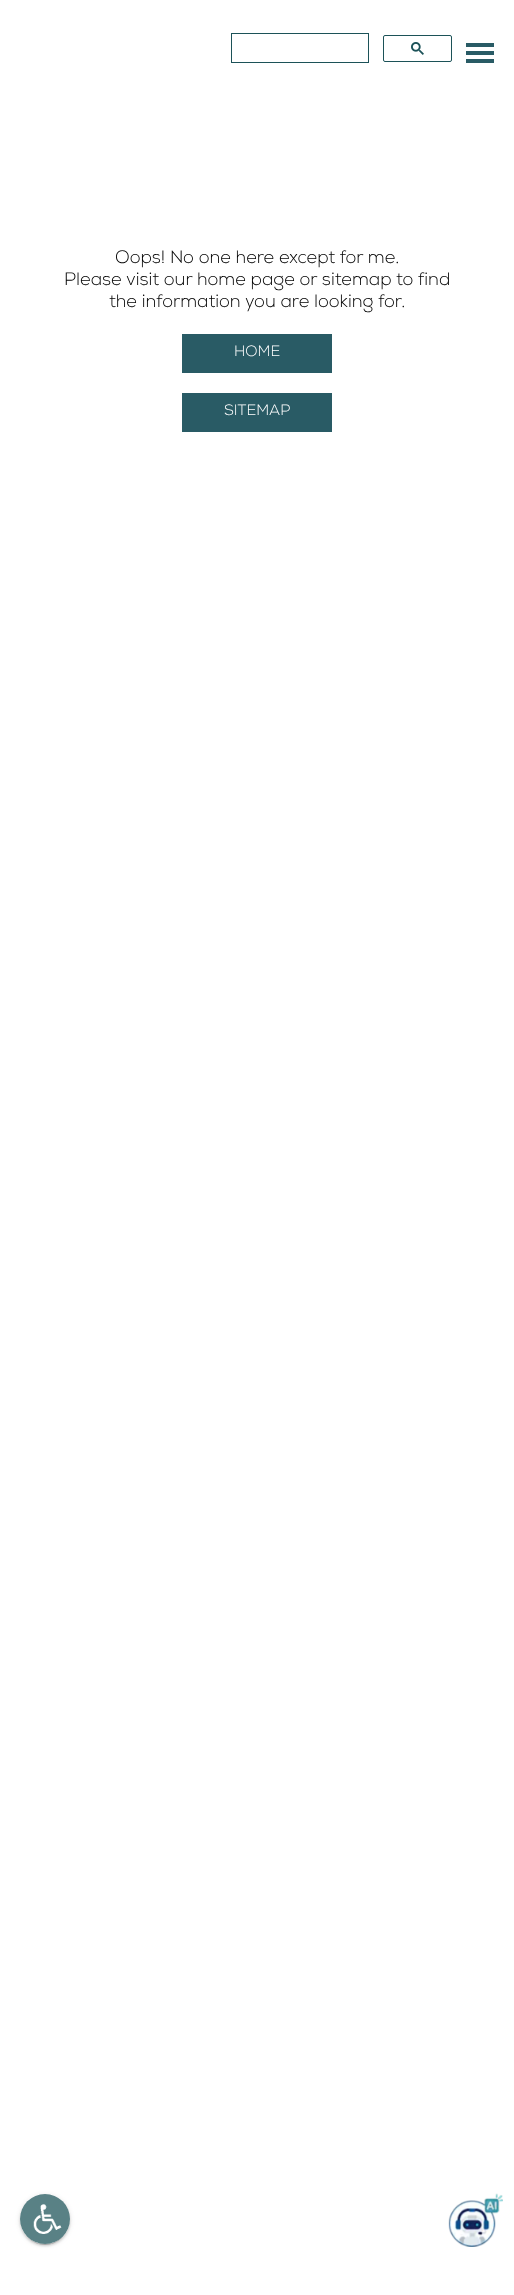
async function draw(canvas) {
	canvas.width = 514;
	canvas.height = 2295;
	const c = canvas.getContext('2d');
	c.miterLimit = 4;
	c.fontKerning = 'normal';
	async function loadImage(src) {
		const img = new Image();
		img.src = src;
		await img.decode();
		return img;
	}

	c.fillStyle = '#fff';
	c.fillRect(0, 0, 514, 2295);
	c.strokeStyle = '#1c5258';
	c.strokeRect(231.5, 33.5, 137, 29);
	c.beginPath();
	c.roundRect(383.5, 35.5, 68, 26, 1.5);
	c.stroke();
	c.drawImage(await loadImage('img1.png'), 411, 42, 13, 13);
	for (const [x, y, w, h, color] of [
		[466, 59, 28, 4, '#295b65'],
		[466, 43, 28, 4, '#295b65'],
		[466, 51, 28, 4, '#295b65'],
	]) {
		c.fillStyle = color;
		c.fillRect(x, y, w, h);
	}
	c.save();
	c.beginPath();
	c.moveTo(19, 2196);
	c.lineTo(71, 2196);
	c.lineTo(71, 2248);
	c.lineTo(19, 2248);
	c.closePath();
	c.moveTo(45, 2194);
	c.bezierCurveTo(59, 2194, 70, 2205, 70, 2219);
	c.bezierCurveTo(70, 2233, 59, 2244, 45, 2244);
	c.bezierCurveTo(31, 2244, 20, 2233, 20, 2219);
	c.bezierCurveTo(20, 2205, 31, 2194, 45, 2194);
	c.closePath();
	c.clip('evenodd');
	c.fillStyle = '#00000033';
	c.filter = 'blur(0.5px)';
	c.beginPath();
	c.roundRect(22, 2199, 46, 46, 23);
	c.fill();
	c.filter = 'none';
	c.restore();
	c.save();
	c.beginPath();
	c.moveTo(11, 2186);
	c.lineTo(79, 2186);
	c.lineTo(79, 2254);
	c.lineTo(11, 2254);
	c.closePath();
	c.moveTo(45, 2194);
	c.bezierCurveTo(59, 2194, 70, 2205, 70, 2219);
	c.bezierCurveTo(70, 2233, 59, 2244, 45, 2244);
	c.bezierCurveTo(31, 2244, 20, 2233, 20, 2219);
	c.bezierCurveTo(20, 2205, 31, 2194, 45, 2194);
	c.closePath();
	c.clip('evenodd');
	c.fillStyle = '#0000001f';
	c.filter = 'blur(2.5px)';
	c.beginPath();
	c.roundRect(20, 2195, 50, 50, 25);
	c.fill();
	c.filter = 'none';
	c.restore();
	c.save();
	c.beginPath();
	c.moveTo(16, 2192);
	c.lineTo(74, 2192);
	c.lineTo(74, 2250);
	c.lineTo(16, 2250);
	c.closePath();
	c.moveTo(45, 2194);
	c.bezierCurveTo(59, 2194, 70, 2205, 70, 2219);
	c.bezierCurveTo(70, 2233, 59, 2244, 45, 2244);
	c.bezierCurveTo(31, 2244, 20, 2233, 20, 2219);
	c.bezierCurveTo(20, 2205, 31, 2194, 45, 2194);
	c.closePath();
	c.clip('evenodd');
	c.fillStyle = '#00000024';
	c.filter = 'blur(1px)';
	c.beginPath();
	c.roundRect(20, 2196, 50, 50, 25);
	c.fill();
	c.filter = 'none';
	c.restore();
	c.fillStyle = '#1c5258ba';
	c.beginPath();
	c.arc(45, 2219, 25, 0, 2 * Math.PI);
	c.fill();
	c.drawImage(await loadImage('img2.png'), 33, 2204, 29, 30);
	c.drawImage(await loadImage('img3.png'), 448, 2193, 55, 54);
	c.font = '300 18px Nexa';
	c.fillStyle = '#000';
	for (const [text, x, y] of [
		['Oops! No one here except for me.', 115, 263],
		['Please visit our home page or sitemap to find', 64, 285],
		['the information you are looking for.', 109, 307],
	]) {
		c.fillText(text, x, y);
	}
	c.fillStyle = '#295b65';
	c.fillRect(182, 334, 150, 39);
	c.font = '300 15px Nexa';
	c.fillStyle = '#fff';
	c.fillText('HOME', 234, 356);
	c.fillStyle = '#295b65';
	c.fillRect(182, 393, 150, 39);
	c.fillStyle = '#fff';
	c.fillText('SITEMAP', 224, 415);
}

draw(document.querySelector('canvas'));
